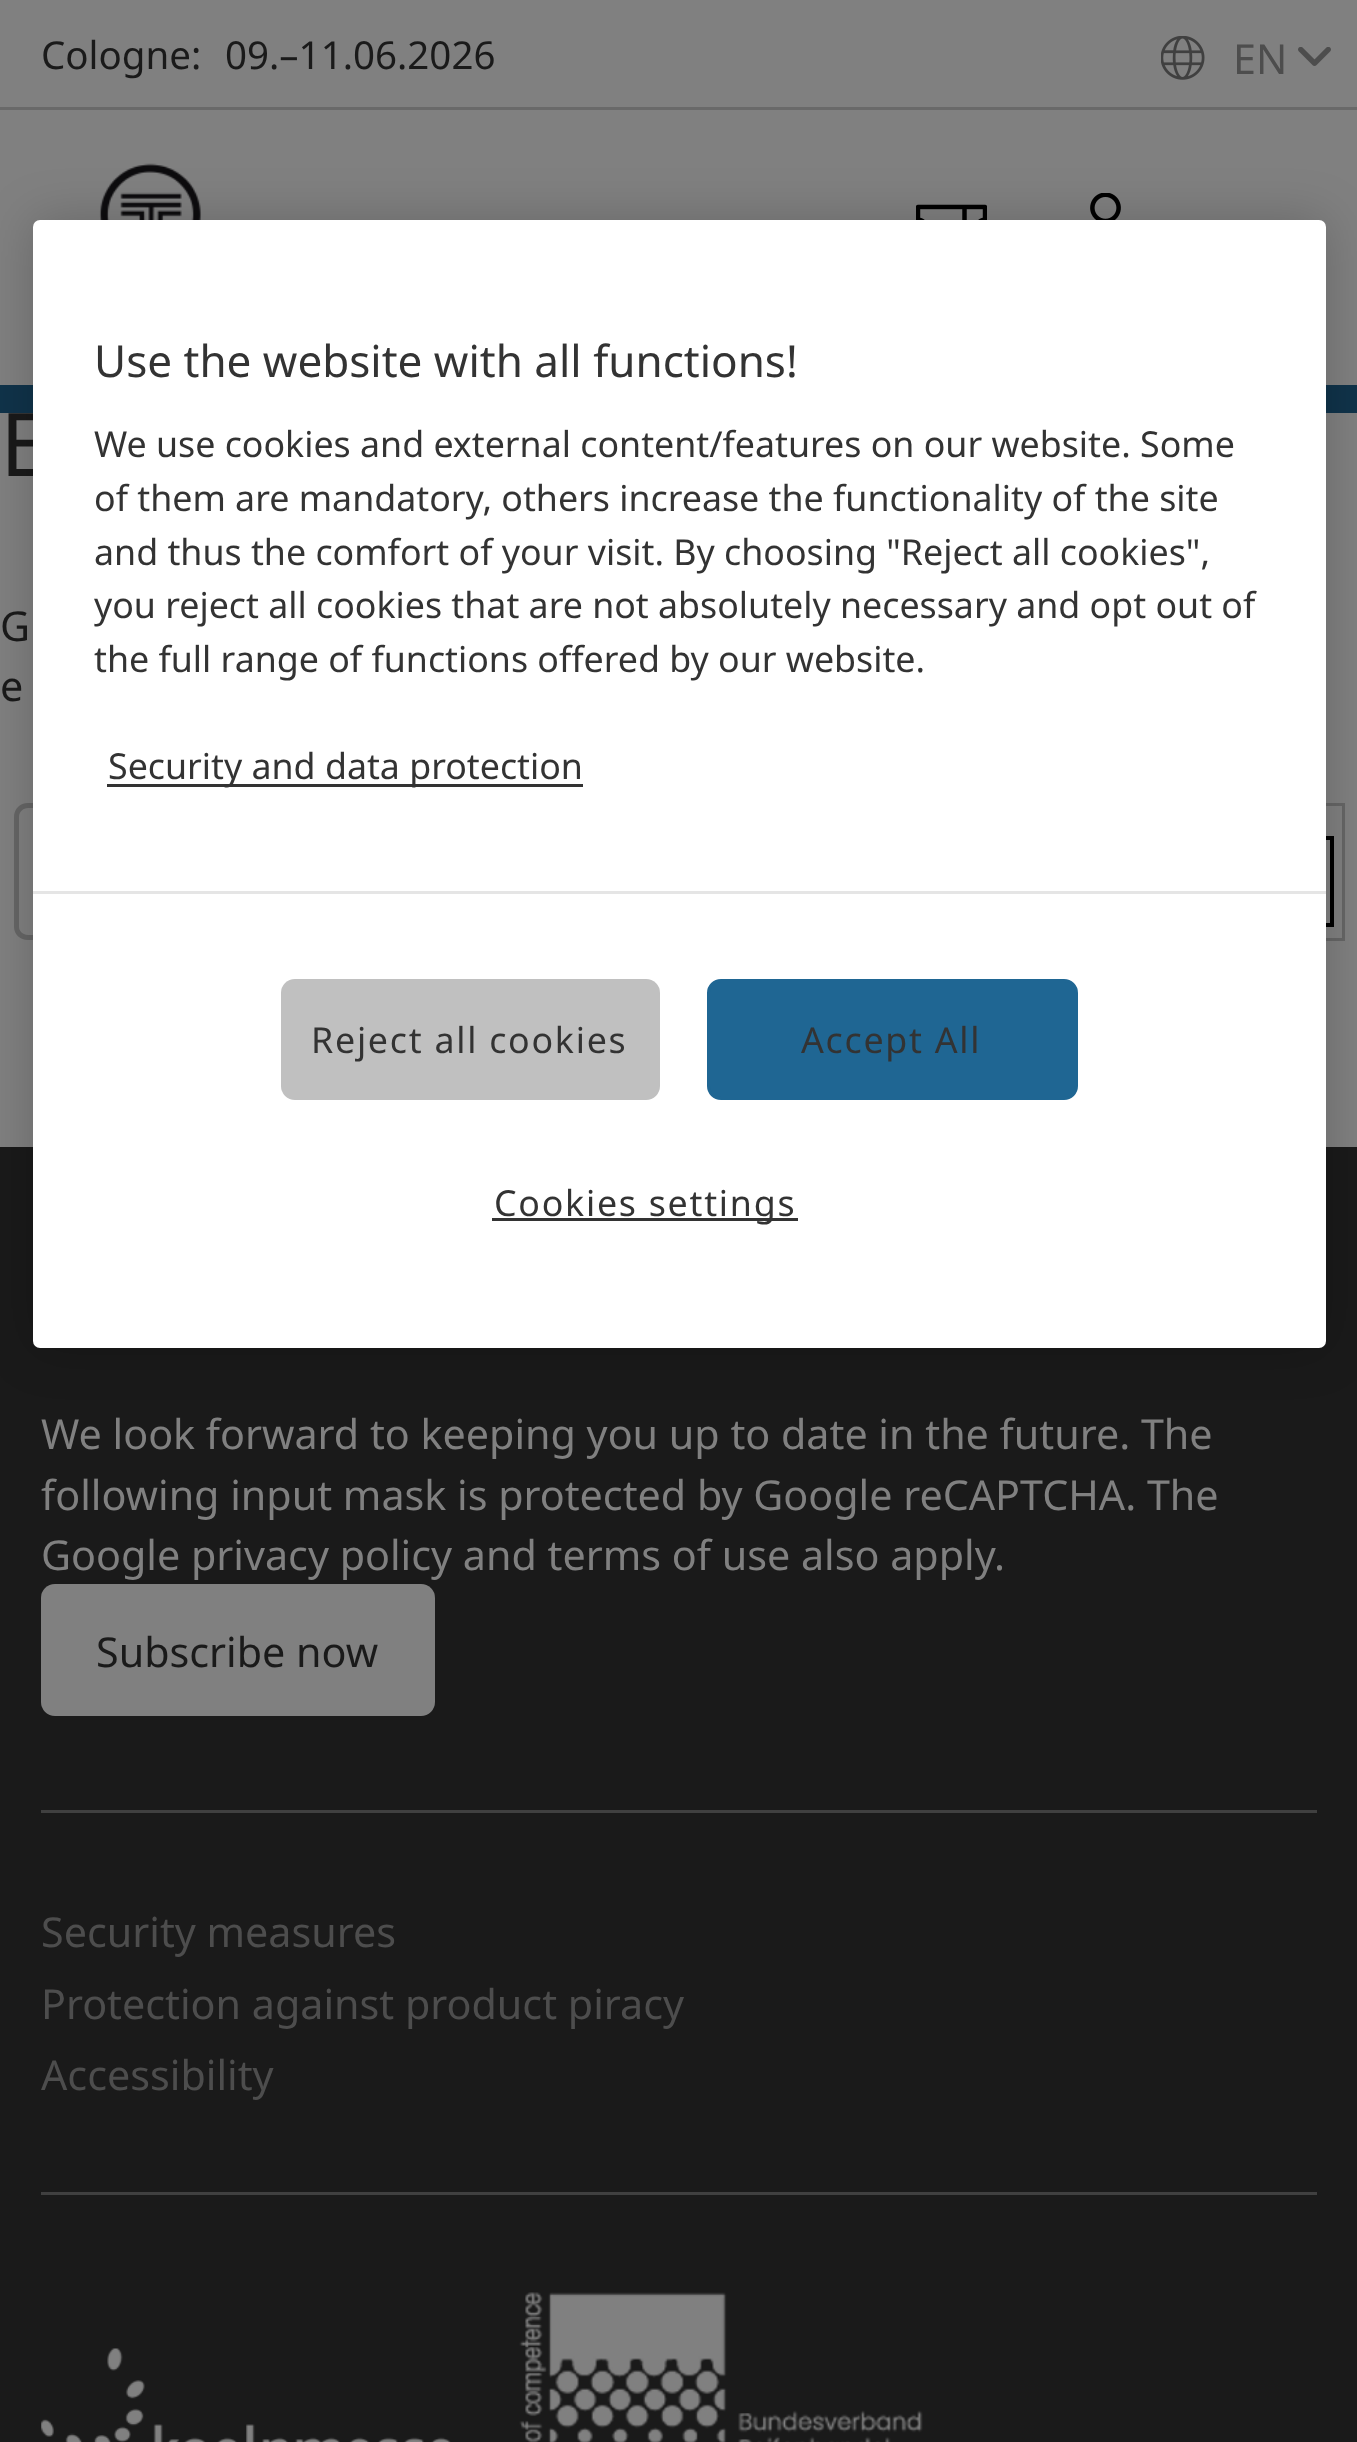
async function draw(canvas) {
	canvas.width = 1357;
	canvas.height = 2442;
	const c = canvas.getContext('2d');
	c.miterLimit = 4;
	c.fontKerning = 'normal';
	async function loadImage(src) {
		const img = new Image();
		img.src = src;
		await img.decode();
		return img;
	}

	c.fillStyle = '#808080';
	c.fillRect(0, 0, 1357, 2442);
	c.font = '38.5px Noto Sans';
	c.fillStyle = '#1a1a1a';
	c.fillText('Cologne:', 41, 69);
	c.fillText('09.–11.06.2026', 225, 69);
	c.fillStyle = '#696969';
	c.fillRect(0, 107, 1357, 3);
	c.drawImage(await loadImage('img1.png'), 1161, 36, 44, 44);
	c.font = '41.25px Noto Sans';
	c.fillStyle = '#4d4d4d';
	c.fillText('EN', 1233, 74);
	c.drawImage(await loadImage('img2.png'), 1298, 47, 33, 19);
	c.drawImage(await loadImage('img3.png'), 99, 163, 104, 57);
	c.drawImage(await loadImage('img4.png'), 916, 204, 71, 16);
	c.drawImage(await loadImage('img5.png'), 1090, 193, 31, 27);
	c.fillStyle = '#10334a';
	c.fillRect(0, 385, 1357, 28);
	c.font = '88px Noto Sans';
	c.fillStyle = '#1a1a1a';
	c.fillText('E', 0, 476);
	c.font = '41.25px Noto Sans';
	c.fillText('G', 0, 641);
	c.fillText('e', 0, 701);
	c.fillStyle = '#666';
	c.beginPath();
	c.moveTo(28, 803);
	c.lineTo(1251, 803);
	c.bezierCurveTo(1259, 803, 1265, 809, 1265, 817);
	c.lineTo(1265, 927);
	c.bezierCurveTo(1265, 934, 1259, 940, 1251, 940);
	c.lineTo(28, 940);
	c.bezierCurveTo(20, 940, 14, 934, 14, 927);
	c.lineTo(14, 817);
	c.bezierCurveTo(14, 809, 20, 803, 28, 803);
	c.closePath();
	c.moveTo(28, 808);
	c.lineTo(1251, 808);
	c.bezierCurveTo(1259, 808, 1265, 812, 1265, 817);
	c.lineTo(1265, 927);
	c.bezierCurveTo(1265, 931, 1259, 935, 1251, 935);
	c.lineTo(28, 935);
	c.bezierCurveTo(23, 935, 19, 931, 19, 927);
	c.lineTo(19, 817);
	c.bezierCurveTo(19, 812, 23, 808, 28, 808);
	c.closePath();
	c.fill('evenodd');
	for (const [x, y, w, h, color] of [
		[1326, 803, 19, 3, '#666'],
		[1342, 803, 3, 138, '#666'],
		[1326, 938, 19, 3, '#666'],
	]) {
		c.fillStyle = color;
		c.fillRect(x, y, w, h);
	}
	c.strokeStyle = '#000';
	c.lineWidth = 4;
	c.strokeRect(1245, 838, 87, 87);
	c.fillStyle = '#1a1a1a';
	c.fillRect(0, 1147, 1357, 1295);
	c.fillStyle = '#00000033';
	c.filter = 'blur(25px)';
	c.beginPath();
	c.roundRect(33, 220, 1293, 1128, 7);
	c.fill();
	c.filter = 'none';
	c.fillStyle = '#fff';
	c.beginPath();
	c.roundRect(33, 220, 1293, 1128, 7);
	c.fill();
	c.font = '44px Noto Sans';
	c.fillStyle = '#333';
	c.fillText('Use the website with all functions!', 94, 377);
	c.font = '35.75px Noto Sans';
	for (const [text, x, y] of [
		['We use cookies and external content/features on our website. Some', 94, 457],
		['of them are mandatory, others increase the functionality of the site', 94, 511],
		['and thus the comfort of your visit. By choosing "Reject all cookies",', 94, 565],
		['you reject all cookies that are not absolutely necessary and opt out of', 94, 618],
		['the full range of functions offered by our website.', 94, 672],
	]) {
		c.fillText(text, x, y);
	}
	c.fillRect(107, 784, 476, 3);
	c.fillText('Security and data protection', 108, 779);
	c.fillStyle = '#e5e5e5';
	c.fillRect(33, 891, 1293, 3);
	c.fillStyle = '#c0c0c0';
	c.beginPath();
	c.roundRect(281, 979, 379, 121, 14);
	c.fill();
	c.letterSpacing = '1.75px';
	c.fillStyle = '#333';
	c.fillText('Reject all cookies', 311, 1053);
	c.fillStyle = '#1f6693';
	c.beginPath();
	c.roundRect(708.5, 980.5, 368, 118, 12.5);
	c.fill();
	c.strokeStyle = '#1f6693';
	c.lineWidth = 3;
	c.stroke();
	c.fillStyle = '#333';
	c.fillText('Accept All', 801, 1053);
	c.fillRect(492, 1218, 306, 3);
	c.fillText('Cookies settings', 494, 1216);
	c.fillStyle = '#404040';
	c.fillRect(41, 1810, 1276, 3);
	c.letterSpacing = '0px';
	c.font = '41.25px Noto Sans';
	c.fillStyle = '#808080';
	for (const [text, x, y] of [
		['We look forward to keeping you up to date in the future. The', 41, 1449],
		['following input mask is protected by Google reCAPTCHA. The', 41, 1510],
		['Google privacy policy and terms of use also apply.', 41, 1570],
	]) {
		c.fillText(text, x, y);
	}
	c.beginPath();
	c.roundRect(41, 1584, 394, 132, 14);
	c.fill();
	c.fillStyle = '#1a1a1a';
	c.fillText('Subscribe now', 96, 1667);
	c.fillStyle = '#4d4d4d';
	for (const [text, x, y] of [
		['Security measures', 41, 1947],
		['Protection against product piracy', 41, 2019],
		['Accessibility', 41, 2090],
	]) {
		c.fillText(text, x, y);
	}
	c.fillStyle = '#404040';
	c.fillRect(41, 2192, 1276, 3);
	c.drawImage(await loadImage('img6.png'), 41, 2348, 410, 94);
	c.drawImage(await loadImage('img7.png'), 519, 2292, 404, 150);
}

draw(document.querySelector('canvas'));
